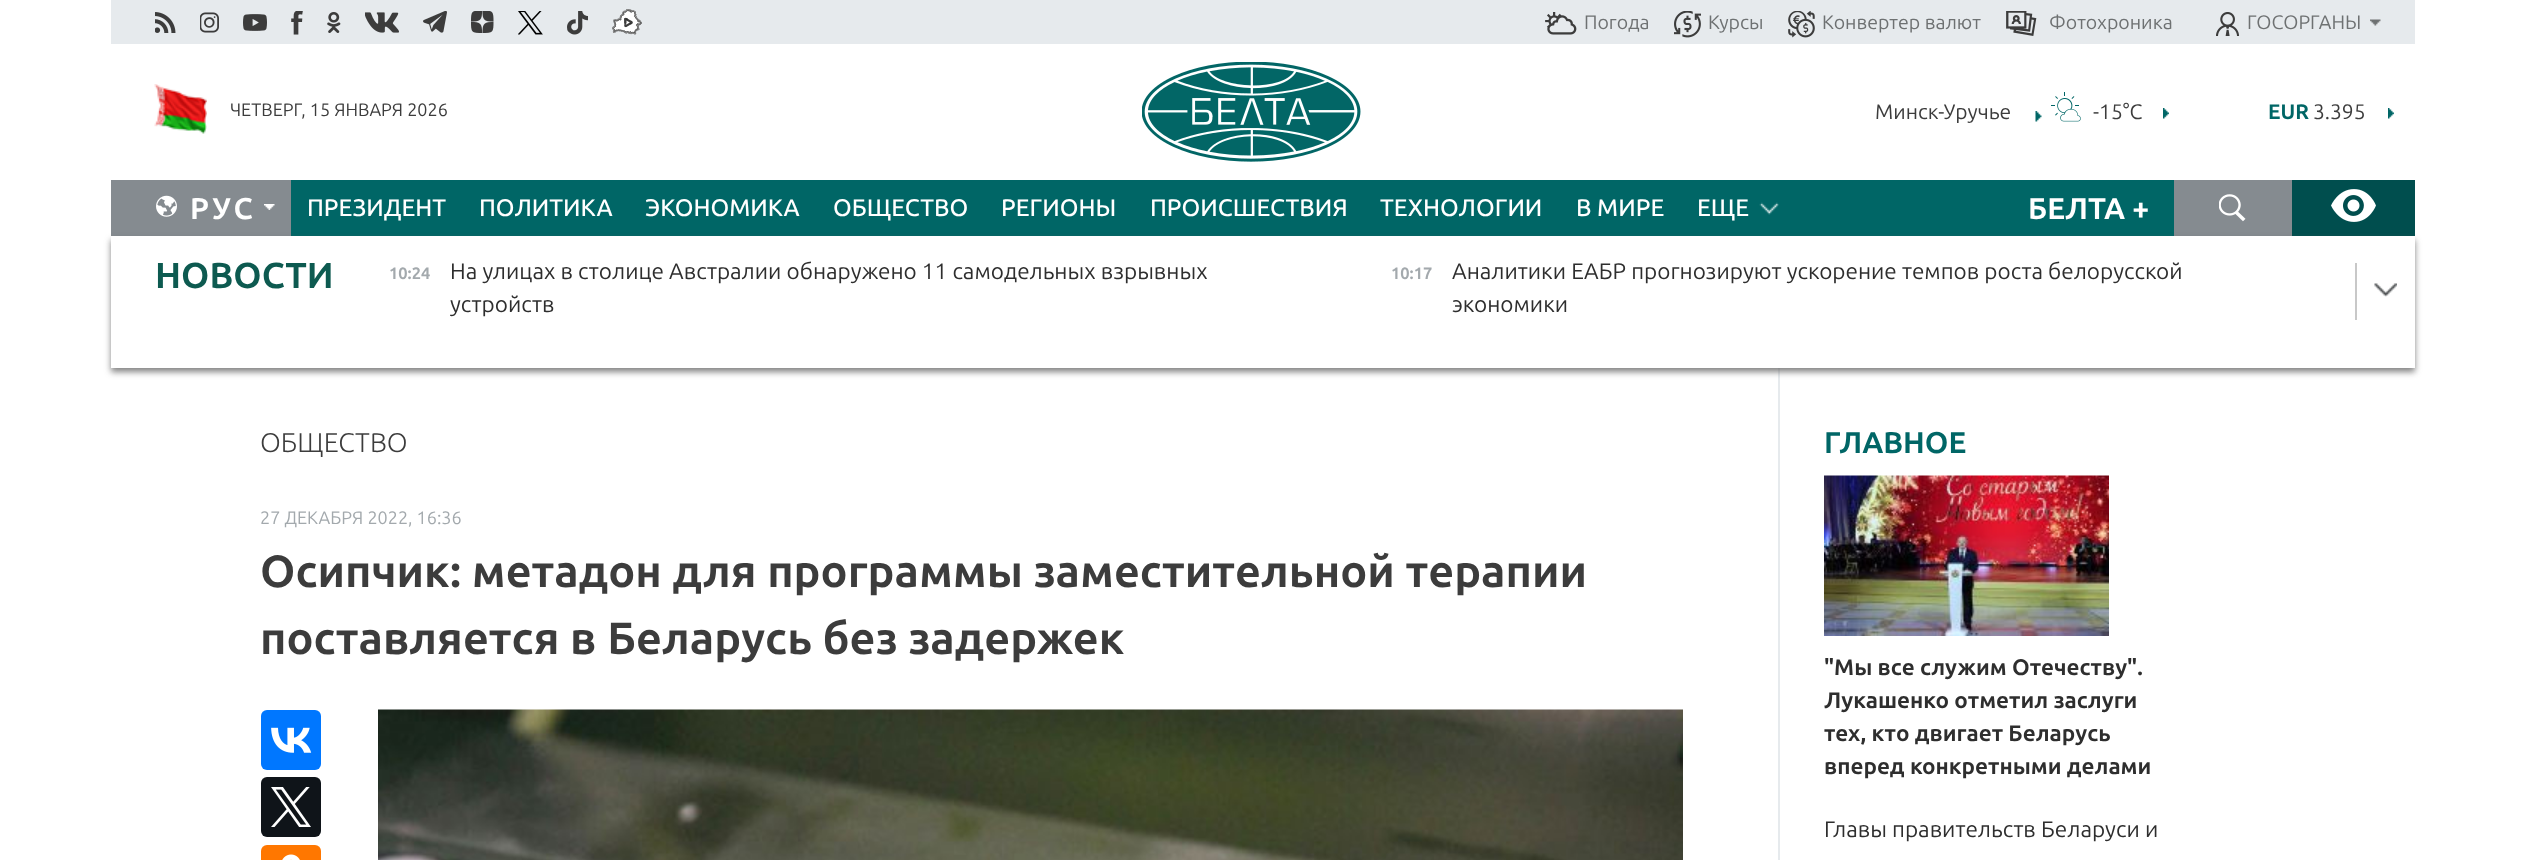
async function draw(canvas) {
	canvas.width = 2524;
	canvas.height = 860;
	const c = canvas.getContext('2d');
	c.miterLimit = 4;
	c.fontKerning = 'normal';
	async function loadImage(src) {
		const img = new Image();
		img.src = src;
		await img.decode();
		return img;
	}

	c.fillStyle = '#fff';
	c.fillRect(0, 0, 2524, 860);
	c.fillStyle = '#e6eaed';
	c.fillRect(111, 0, 2304, 44);
	c.drawImage(await loadImage('img1.png'), 155, 12, 21, 21);
	c.drawImage(await loadImage('img2.png'), 200, 12, 19, 21);
	c.drawImage(await loadImage('img3.png'), 243, 14, 24, 17);
	c.drawImage(await loadImage('img4.png'), 291, 11, 12, 24);
	c.drawImage(await loadImage('img5.png'), 327, 12, 14, 21);
	c.drawImage(await loadImage('img6.png'), 365, 12, 34, 21);
	c.drawImage(await loadImage('img7.png'), 423, 11, 24, 22);
	c.drawImage(await loadImage('img8.png'), 471, 11, 23, 22);
	c.drawImage(await loadImage('img9.png'), 518, 11, 25, 24);
	c.drawImage(await loadImage('img10.png'), 567, 11, 21, 24);
	c.drawImage(await loadImage('img11.png'), 612, 9, 30, 26);
	c.drawImage(await loadImage('img12.png'), 1545, 12, 32, 23);
	c.font = '19.5px Ubuntu';
	c.fillStyle = '#6e7172';
	c.fillText('Погода', 1584, 29);
	c.drawImage(await loadImage('img13.png'), 1674, 11, 27, 27);
	c.fillText('Курсы', 1708, 29);
	c.drawImage(await loadImage('img14.png'), 1788, 11, 27, 27);
	c.fillText('Конвертер валют', 1822, 29);
	c.drawImage(await loadImage('img15.png'), 2006, 11, 31, 25);
	c.fillText('Фотохроника', 2049, 29);
	c.drawImage(await loadImage('img16.png'), 2370, 19, 11, 7);
	c.drawImage(await loadImage('img17.png'), 2216, 12, 24, 24);
	c.fillText('ГОСОРГАНЫ', 2247, 29);
	c.drawImage(await loadImage('img18.png'), 154, 84, 53, 50);
	c.font = '18px Ubuntu';
	c.fillStyle = '#3c3c3c';
	c.fillText('ЧЕТВЕРГ, 15 ЯНВАРЯ 2026', 230, 116);
	c.drawImage(await loadImage('img19.png'), 1142, 62, 219, 100);
	c.drawImage(await loadImage('img20.png'), 2035, 111, 7, 11);
	c.font = '21px Ubuntu';
	c.fillText('Минск-Уручье', 1875, 119);
	c.drawImage(await loadImage('img21.png'), 2051, 92, 30, 30);
	c.fillText('-15°C', 2093, 119);
	c.drawImage(await loadImage('img22.png'), 2163, 108, 6, 11);
	c.font = 'bold 21px Ubuntu';
	c.fillStyle = '#066';
	c.fillText('EUR', 2268, 119);
	c.font = '21px Ubuntu';
	c.fillStyle = '#3c3c3c';
	c.fillText('3.395', 2313, 119);
	c.drawImage(await loadImage('img22.png'), 2388, 108, 6, 11);
	c.fillStyle = '#066';
	c.fillRect(291, 180, 1883, 56);
	c.fillStyle = '#858b90';
	c.fillRect(111, 180, 180, 56);
	c.drawImage(await loadImage('img23.png'), 156, 195, 21, 22);
	c.letterSpacing = '3px';
	c.font = 'bold 30px Ubuntu';
	c.fillStyle = '#fff';
	c.fillText('РУС', 190, 219);
	c.drawImage(await loadImage('img24.png'), 264, 204, 11, 6);
	c.letterSpacing = '0px';
	c.font = '500 24px Ubuntu';
	for (const [text, x, y] of [
		['ПРЕЗИДЕНТ', 307, 216],
		['ПОЛИТИКА', 479, 216],
		['ЭКОНОМИКА', 645, 216],
		['ОБЩЕСТВО', 833, 216],
		['РЕГИОНЫ', 1001, 216],
		['ПРОИСШЕСТВИЯ', 1150, 216],
		['ТЕХНОЛОГИИ', 1380, 216],
		['В МИРЕ', 1576, 216],
		['ЕЩЕ', 1697, 216],
	]) {
		c.fillText(text, x, y);
	}
	c.drawImage(await loadImage('img25.png'), 1759, 202, 20, 13);
	c.font = 'bold 30px Ubuntu';
	c.fillText('БЕЛТА +', 2028, 219);
	c.fillStyle = '#858b90';
	c.fillRect(2174, 180, 118, 56);
	c.drawImage(await loadImage('img26.png'), 2219, 194, 27, 28);
	c.fillStyle = '#004e4e';
	c.fillRect(2292, 180, 123, 56);
	c.drawImage(await loadImage('img27.png'), 2331, 189, 45, 33);
	c.fillStyle = '#e6eaed';
	c.fillRect(1778, 368, 2, 492);
	c.fillStyle = '#646464cc';
	c.filter = 'blur(3px)';
	c.beginPath();
	c.rect(111, 240, 2304, 132);
	c.fill();
	c.filter = 'none';
	c.fillStyle = '#fff';
	c.fillRect(111, 236, 2304, 132);
	c.font = 'bold 36px Ubuntu';
	c.fillStyle = '#0d5a50';
	c.fillText('НОВОСТИ', 155, 288);
	c.font = 'bold 16.5px Ubuntu';
	c.fillStyle = '#a3a9ad';
	c.fillText('10:24', 389, 279);
	c.font = '22.5px Ubuntu';
	c.fillStyle = '#2e2e2e';
	c.fillText('На улицах в столице Австралии обнаружено 11 самодельных взрывных', 450, 279);
	c.fillText('устройств', 450, 312);
	c.font = 'bold 16.5px Ubuntu';
	c.fillStyle = '#a3a9ad';
	c.fillText('10:17', 1391, 279);
	c.font = '22.5px Ubuntu';
	c.fillStyle = '#2e2e2e';
	c.fillText('Аналитики ЕАБР прогнозируют ускорение темпов роста белорусской', 1452, 279);
	c.fillText('экономики', 1452, 312);
	c.drawImage(await loadImage('img28.png'), 2374, 283, 23, 14);
	c.fillStyle = '#c8c8c8';
	c.fillRect(2355, 263, 2, 57);
	c.font = '300 27px Ubuntu';
	c.fillStyle = '#3c3c3c';
	c.fillText('ОБЩЕСТВО', 260, 452);
	c.font = '18px Ubuntu';
	c.fillStyle = '#a3a9ad';
	c.fillText('27 ДЕКАБРЯ 2022, 16:36', 260, 524);
	c.font = 'bold 45px Ubuntu';
	c.fillStyle = '#3c3c3c';
	c.fillText('Осипчик: метадон для программы заместительной терапии', 260, 587);
	c.fillText('поставляется в Беларусь без задержек', 260, 654);
	c.fillStyle = '#07f';
	c.beginPath();
	c.roundRect(261, 710, 60, 60, 6);
	c.fill();
	c.drawImage(await loadImage('img29.png'), 271, 727, 41, 26);
	c.fillStyle = '#0f1419';
	c.beginPath();
	c.roundRect(261, 777, 60, 60, 6);
	c.fill();
	c.drawImage(await loadImage('img30.png'), 271, 787, 40, 40);
	c.fillStyle = '#f70';
	c.beginPath();
	c.roundRect(261, 845, 60, 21, 6);
	c.fill();
	c.drawImage(await loadImage('img31.png'), 282, 854, 18, 6);
	c.drawImage(await loadImage('img32.png'), 378, 709, 1305, 151);
	c.font = 'bold 30px Ubuntu';
	c.fillStyle = '#066';
	c.fillText('ГЛАВНОЕ', 1824, 453);
	c.drawImage(await loadImage('img33.png'), 1824, 475, 285, 161);
	c.font = 'bold 22.5px Ubuntu';
	c.fillStyle = '#2e2e2e';
	for (const [text, x, y] of [
		['"Мы все служим Отечеству".', 1824, 675],
		['Лукашенко отметил заслуги', 1824, 708],
		['тех, кто двигает Беларусь', 1824, 741],
		['вперед конкретными делами', 1824, 774],
	]) {
		c.fillText(text, x, y);
	}
	c.font = '22.5px Ubuntu';
	c.fillText('Главы правительств Беларуси и', 1824, 837);
}

draw(document.querySelector('canvas'));
